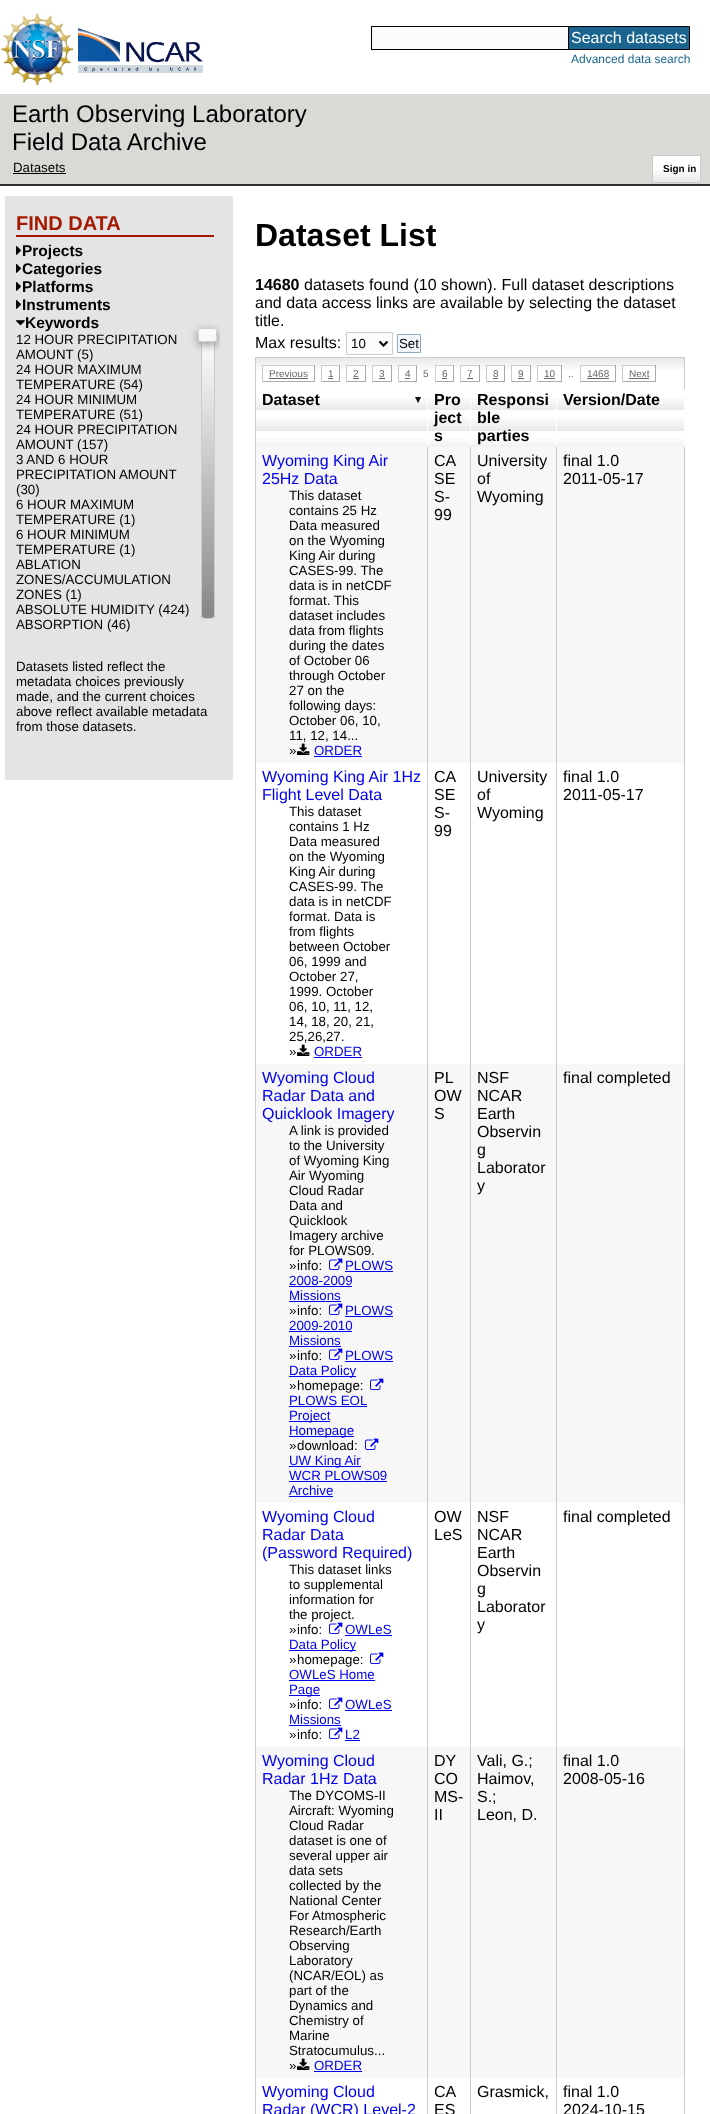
async function draw(canvas) {
	canvas.width = 710;
	canvas.height = 2114;
	const c = canvas.getContext('2d');
	c.miterLimit = 4;
	c.fontKerning = 'normal';
	async function loadImage(src) {
		const img = new Image();
		img.src = src;
		await img.decode();
		return img;
	}
	let gradient;

	c.fillStyle = '#d9d9d6';
	c.fillRect(0, 0, 710, 2114);
	c.fillStyle = '#fff';
	c.fillRect(0, 0, 710, 94);
	c.drawImage(await loadImage('img1.png'), 1, 13, 73, 73);
	c.drawImage(await loadImage('img2.png'), 78, 28, 125, 45);
	for (const [x, y, w, h, color] of [
		[372, 27, 196, 22, '#fcfcfc'],
		[371, 26, 197, 1, '#000'],
		[371, 49, 197, 1, '#000'],
		[371, 26, 1, 24, '#000'],
	]) {
		c.fillStyle = color;
		c.fillRect(x, y, w, h);
	}
	c.fillStyle = '#1a658f';
	c.beginPath();
	c.rect(568.5, 26.5, 121, 23);
	c.fill();
	c.strokeStyle = '#000';
	c.stroke();
	c.font = '16px Liberation Sans';
	c.fillStyle = '#fff';
	c.fillText('Search datasets', 571, 43);
	c.font = '12px Liberation Sans';
	c.fillStyle = '#1a658f';
	c.fillText('Advanced data search', 571, 63);
	c.fillStyle = '#323133';
	c.fillRect(0, 184, 710, 2);
	c.font = '24px Liberation Sans';
	c.fillStyle = '#000';
	c.fillText('Earth Observing Laboratory', 12, 122);
	c.fillText('Field Data Archive', 12, 150);
	c.font = '13.3px Liberation Sans';
	c.fillText('Datasets', 13, 172);
	c.fillRect(13, 173, 53, 1);
	c.fillStyle = '#fff';
	c.fillRect(653, 156, 47, 14);
	c.drawImage(await loadImage('img3.png'), 653, 170, 47, 12);
	c.strokeStyle = '#ccc';
	c.strokeRect(652.5, 155.5, 48, 27);
	c.font = 'bold 10px Liberation Sans';
	c.fillStyle = '#000';
	c.fillText('Sign in', 663, 172);
	for (const [x, y, w, h, color] of [
		[0, 186, 710, 1928, '#fff'],
		[5, 196, 228, 584, '#e3e4e6'],
		[16, 235, 198, 2, '#a51901'],
	]) {
		c.fillStyle = color;
		c.fillRect(x, y, w, h);
	}
	c.font = 'bold 20px Liberation Sans';
	c.fillText('FIND DATA', 16, 230);
	c.drawImage(await loadImage('img4.png'), 16, 246, 5, 9);
	c.font = 'bold 15.5px Liberation Sans';
	c.fillStyle = '#000';
	c.fillText('Projects', 22, 256);
	c.drawImage(await loadImage('img4.png'), 16, 264, 5, 9);
	c.fillText('Categories', 22, 274);
	c.drawImage(await loadImage('img4.png'), 16, 282, 5, 9);
	c.fillText('Platforms', 22, 292);
	c.drawImage(await loadImage('img4.png'), 16, 300, 5, 9);
	c.fillText('Instruments', 22, 310);
	c.drawImage(await loadImage('img5.png'), 16, 320, 9, 6);
	c.fillText('Keywords', 25, 328);
	c.save();
	c.beginPath();
	c.roundRect(201, 332, 14, 287, 4);
	c.clip();
	gradient = c.createLinearGradient(208, 333, 208, 618);
	gradient.addColorStop(0, '#fff');
	gradient.addColorStop(1, '#878787');
	c.fillStyle = gradient;
	c.fillRect(201, 341, 14, 277);
	c.restore();
	c.beginPath();
	c.roundRect(201.5, 332.5, 13, 286, 3.5);
	c.stroke();
	c.save();
	c.beginPath();
	c.rect(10, 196, 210, 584);
	c.clip();
	c.fillStyle = '#00000066';
	c.filter = 'blur(4px)';
	c.beginPath();
	c.roundRect(198, 331, 19, 14, 3);
	c.fill();
	c.filter = 'none';
	c.restore();
	c.drawImage(await loadImage('img6.png'), 198, 328, 19, 14);
	c.beginPath();
	c.moveTo(202, 328.5);
	c.lineTo(209.5, 328.5);
	c.bezierCurveTo(211, 328.5, 215.5, 328, 216.5, 330.5);
	c.lineTo(216.5, 336.5);
	c.bezierCurveTo(216.5, 339, 217, 341.5, 213, 341.5);
	c.lineTo(203.5, 341.5);
	c.bezierCurveTo(197.5, 341.5, 198.5, 339, 198.5, 333.5);
	c.bezierCurveTo(198.5, 331, 198, 328.5, 202, 328.5);
	c.closePath();
	c.stroke();
	c.font = '13.3px Liberation Sans';
	for (const [text, x, y] of [
		['12 HOUR PRECIPITATION', 16, 344],
		['AMOUNT (5)', 16, 359],
		['24 HOUR MAXIMUM', 16, 374],
		['TEMPERATURE (54)', 16, 389],
		['24 HOUR MINIMUM', 16, 404],
		['TEMPERATURE (51)', 16, 419],
		['24 HOUR PRECIPITATION', 16, 434],
		['AMOUNT (157)', 16, 449],
		['3 AND 6 HOUR', 16, 464],
		['PRECIPITATION AMOUNT', 16, 479],
		['(30)', 16, 494],
		['6 HOUR MAXIMUM', 16, 509],
		['TEMPERATURE (1)', 16, 524],
		['6 HOUR MINIMUM', 16, 539],
		['TEMPERATURE (1)', 16, 554],
		['ABLATION', 16, 569],
		['ZONES/ACCUMULATION', 16, 584],
		['ZONES (1)', 16, 599],
		['ABSOLUTE HUMIDITY (424)', 16, 614],
		['ABSORPTION (46)', 16, 629],
		['Datasets listed reflect the', 16, 671],
		['metadata choices previously', 16, 686],
		['made, and the current choices', 16, 701],
		['above reflect available metadata', 16, 716],
		['from those datasets.', 16, 731],
	]) {
		c.fillText(text, x, y);
	}
	c.font = 'bold 32px Liberation Sans';
	c.fillText('Dataset List', 255, 246);
	c.font = 'bold 16px Liberation Sans';
	c.fillText('14680', 255, 290);
	c.font = '16px Liberation Sans';
	for (const [text, x, y] of [
		['datasets found (10 shown). Full dataset descriptions', 304, 290],
		['and data access links are available by selecting the dataset', 255, 308],
		['title.', 255, 326],
		['Max results:', 255, 348],
	]) {
		c.fillText(text, x, y);
	}
	c.fillStyle = '#fcfcfc';
	c.beginPath();
	c.rect(346.5, 332.5, 46, 22);
	c.fill();
	c.stroke();
	c.beginPath();
	c.moveTo(379.5, 341.5);
	c.lineTo(383.5, 345.5);
	c.lineTo(387.5, 341.5);
	c.strokeStyle = '#000';
	c.lineWidth = 2;
	c.stroke();
	c.font = '13.3px Liberation Sans';
	c.fillStyle = '#000';
	c.fillText('10', 351, 348);
	c.fillStyle = '#f3f8fc';
	c.beginPath();
	c.rect(397.5, 334.5, 23, 18);
	c.fill();
	c.strokeStyle = '#8cacbb';
	c.lineWidth = 1;
	c.stroke();
	c.fillStyle = '#000';
	c.fillText('Set', 399, 348);
	c.drawImage(await loadImage('img7.png'), 256, 358, 428, 12);
	for (const [x, y, w, h, color] of [
		[255, 357, 430, 1, '#ccc'],
		[684, 357, 1, 32, '#ccc'],
		[255, 388, 1, 1726, '#ccc'],
		[255, 357, 1, 32, '#ccc'],
		[263, 366, 51, 4, '#fff'],
	]) {
		c.fillStyle = color;
		c.fillRect(x, y, w, h);
	}
	c.font = '10px Liberation Sans';
	c.fillStyle = '#666';
	c.fillText('Previous', 269, 377);
	for (const [x, y, w, h, color] of [
		[262, 365, 53, 1, '#ccc'],
		[314, 365, 1, 17, '#aaa'],
		[262, 381, 53, 1, '#aaa'],
		[262, 365, 1, 17, '#ccc'],
		[269, 378, 39, 1, '#666'],
	]) {
		c.fillStyle = color;
		c.fillRect(x, y, w, h);
	}
	c.fillText('1', 328, 377);
	for (const [x, y, w, h, color] of [
		[322, 366, 17, 4, '#fff'],
		[321, 365, 19, 1, '#ccc'],
		[339, 365, 1, 17, '#aaa'],
		[321, 381, 19, 1, '#aaa'],
		[321, 365, 1, 17, '#ccc'],
		[328, 378, 5, 1, '#666'],
	]) {
		c.fillStyle = color;
		c.fillRect(x, y, w, h);
	}
	c.fillText('2', 353, 377);
	for (const [x, y, w, h, color] of [
		[347, 366, 18, 4, '#fff'],
		[346, 365, 20, 1, '#ccc'],
		[365, 365, 1, 17, '#aaa'],
		[346, 381, 20, 1, '#aaa'],
		[346, 365, 1, 17, '#ccc'],
		[353, 378, 6, 1, '#666'],
	]) {
		c.fillStyle = color;
		c.fillRect(x, y, w, h);
	}
	c.fillText('3', 379, 377);
	for (const [x, y, w, h, color] of [
		[373, 366, 18, 4, '#fff'],
		[372, 365, 20, 1, '#ccc'],
		[391, 365, 1, 17, '#aaa'],
		[372, 381, 20, 1, '#aaa'],
		[372, 365, 1, 17, '#ccc'],
		[379, 378, 6, 1, '#666'],
	]) {
		c.fillStyle = color;
		c.fillRect(x, y, w, h);
	}
	c.fillText('4', 405, 377);
	for (const [x, y, w, h, color] of [
		[399, 366, 17, 4, '#fff'],
		[398, 365, 19, 1, '#ccc'],
		[416, 365, 1, 17, '#aaa'],
		[398, 381, 19, 1, '#aaa'],
		[398, 365, 1, 17, '#ccc'],
		[405, 378, 5, 1, '#666'],
	]) {
		c.fillStyle = color;
		c.fillRect(x, y, w, h);
	}
	c.fillText('5', 423, 377);
	c.fillText('6', 442, 377);
	for (const [x, y, w, h, color] of [
		[436, 366, 17, 4, '#fff'],
		[435, 365, 19, 1, '#ccc'],
		[453, 365, 1, 17, '#aaa'],
		[435, 381, 19, 1, '#aaa'],
		[435, 365, 1, 17, '#ccc'],
		[442, 378, 5, 1, '#666'],
	]) {
		c.fillStyle = color;
		c.fillRect(x, y, w, h);
	}
	c.fillText('7', 467, 377);
	for (const [x, y, w, h, color] of [
		[461, 366, 18, 4, '#fff'],
		[460, 365, 20, 1, '#ccc'],
		[479, 365, 1, 17, '#aaa'],
		[460, 381, 20, 1, '#aaa'],
		[460, 365, 1, 17, '#ccc'],
		[467, 378, 6, 1, '#666'],
	]) {
		c.fillStyle = color;
		c.fillRect(x, y, w, h);
	}
	c.fillText('8', 493, 377);
	for (const [x, y, w, h, color] of [
		[487, 366, 17, 4, '#fff'],
		[486, 365, 19, 1, '#ccc'],
		[504, 365, 1, 17, '#aaa'],
		[486, 381, 19, 1, '#aaa'],
		[486, 365, 1, 17, '#ccc'],
		[493, 378, 5, 1, '#666'],
	]) {
		c.fillStyle = color;
		c.fillRect(x, y, w, h);
	}
	c.fillText('9', 518, 377);
	for (const [x, y, w, h, color] of [
		[512, 366, 18, 4, '#fff'],
		[511, 365, 20, 1, '#ccc'],
		[530, 365, 1, 17, '#aaa'],
		[511, 381, 20, 1, '#aaa'],
		[511, 365, 1, 17, '#ccc'],
		[518, 378, 6, 1, '#666'],
	]) {
		c.fillStyle = color;
		c.fillRect(x, y, w, h);
	}
	c.fillText('10', 544, 377);
	for (const [x, y, w, h, color] of [
		[538, 366, 23, 4, '#fff'],
		[537, 365, 25, 1, '#ccc'],
		[561, 365, 1, 17, '#aaa'],
		[537, 381, 25, 1, '#aaa'],
		[537, 365, 1, 17, '#ccc'],
		[544, 378, 11, 1, '#666'],
	]) {
		c.fillStyle = color;
		c.fillRect(x, y, w, h);
	}
	c.fillText('..', 568, 377);
	c.fillText('1468', 587, 377);
	for (const [x, y, w, h, color] of [
		[581, 366, 34, 4, '#fff'],
		[580, 365, 36, 1, '#ccc'],
		[615, 365, 1, 17, '#aaa'],
		[580, 381, 36, 1, '#aaa'],
		[580, 365, 1, 17, '#ccc'],
		[587, 378, 22, 1, '#666'],
	]) {
		c.fillStyle = color;
		c.fillRect(x, y, w, h);
	}
	c.fillText('Next', 629, 377);
	for (const [x, y, w, h, color] of [
		[623, 366, 32, 4, '#fff'],
		[622, 365, 34, 1, '#ccc'],
		[655, 365, 1, 17, '#aaa'],
		[622, 381, 34, 1, '#aaa'],
		[622, 365, 1, 17, '#ccc'],
		[629, 378, 20, 1, '#666'],
		[256, 447, 428, 316, '#f7f7f7'],
		[256, 1064, 428, 439, '#f7f7f7'],
		[256, 1747, 428, 331, '#f7f7f7'],
		[427, 446, 1, 1668, '#ccc'],
		[427, 446, 1, 1, '#fff'],
	]) {
		c.fillStyle = color;
		c.fillRect(x, y, w, h);
	}
	c.drawImage(await loadImage('img8.png'), 256, 398, 171, 49);
	c.drawImage(await loadImage('img9.png'), 415, 397, 6, 6);
	c.font = 'bold 16px Liberation Sans';
	c.fillStyle = '#000';
	c.fillText('Dataset', 262, 405);
	c.fillStyle = '#ccc';
	c.fillRect(470, 446, 1, 1668);
	c.fillStyle = '#fff';
	c.fillRect(470, 446, 1, 1);
	c.drawImage(await loadImage('img10.png'), 428, 398, 42, 49);
	c.fillStyle = '#000';
	for (const [text, x, y] of [
		['Pro', 434, 405],
		['ject', 434, 423],
		['s', 434, 441],
	]) {
		c.fillText(text, x, y);
	}
	c.fillStyle = '#ccc';
	c.fillRect(556, 446, 1, 1668);
	c.fillStyle = '#fff';
	c.fillRect(556, 446, 1, 1);
	c.drawImage(await loadImage('img11.png'), 471, 398, 85, 49);
	c.fillStyle = '#000';
	for (const [text, x, y] of [
		['Responsi', 477, 405],
		['ble', 477, 423],
		['parties', 477, 441],
	]) {
		c.fillText(text, x, y);
	}
	c.fillStyle = '#ccc';
	c.fillRect(684, 446, 1, 1668);
	c.fillStyle = '#fff';
	c.fillRect(684, 446, 1, 1);
	c.drawImage(await loadImage('img12.png'), 557, 398, 127, 49);
	c.fillStyle = '#000';
	c.fillText('Version/Date', 563, 405);
	c.font = '16px Liberation Sans';
	c.fillStyle = '#00e';
	c.fillText('Wyoming King Air', 262, 466);
	c.fillText('25Hz Data', 262, 484);
	c.font = '13.3px Liberation Sans';
	c.fillStyle = '#000';
	for (const [text, x, y] of [
		['This dataset', 289, 500],
		['contains 25 Hz', 289, 515],
		['Data measured', 289, 530],
		['on the Wyoming', 289, 545],
		['King Air during', 289, 560],
		['CASES-99. The', 289, 575],
		['data is in netCDF', 289, 590],
		['format. This', 289, 605],
		['dataset includes', 289, 620],
		['data from flights', 289, 635],
		['during the dates', 289, 650],
		['of October 06', 289, 665],
		['through October', 289, 680],
		['27 on the', 289, 695],
		['following days:', 289, 710],
		['October 06, 10,', 289, 725],
		['11, 12, 14...', 289, 740],
		['»', 289, 755],
	]) {
		c.fillText(text, x, y);
	}
	c.drawImage(await loadImage('img13.png'), 297, 743, 13, 12);
	c.fillStyle = '#00e';
	c.fillText('ORDER', 314, 755);
	c.fillRect(314, 756, 48, 1);
	c.font = '16px Liberation Sans';
	c.fillStyle = '#000';
	for (const [text, x, y] of [
		['CA', 434, 466],
		['SE', 434, 484],
		['S-', 434, 502],
		['99', 434, 520],
		['University', 477, 466],
		['of', 477, 484],
		['Wyoming', 477, 502],
		['final 1.0', 563, 466],
		['2011-05-17', 563, 484],
	]) {
		c.fillText(text, x, y);
	}
	c.fillStyle = '#00e';
	c.fillText('Wyoming King Air 1Hz', 262, 782);
	c.fillText('Flight Level Data', 262, 800);
	c.font = '13.3px Liberation Sans';
	c.fillStyle = '#000';
	for (const [text, x, y] of [
		['This dataset', 289, 816],
		['contains 1 Hz', 289, 831],
		['Data measured', 289, 846],
		['on the Wyoming', 289, 861],
		['King Air during', 289, 876],
		['CASES-99. The', 289, 891],
		['data is in netCDF', 289, 906],
		['format. Data is', 289, 921],
		['from flights', 289, 936],
		['between October', 289, 951],
		['06, 1999 and', 289, 966],
		['October 27,', 289, 981],
		['1999. October', 289, 996],
		['06, 10, 11, 12,', 289, 1011],
		['14, 18, 20, 21,', 289, 1026],
		['25,26,27.', 289, 1041],
		['»', 289, 1056],
	]) {
		c.fillText(text, x, y);
	}
	c.drawImage(await loadImage('img14.png'), 297, 1044, 13, 12);
	c.fillStyle = '#00e';
	c.fillText('ORDER', 314, 1056);
	c.fillRect(314, 1057, 48, 1);
	c.font = '16px Liberation Sans';
	c.fillStyle = '#000';
	for (const [text, x, y] of [
		['CA', 434, 782],
		['SE', 434, 800],
		['S-', 434, 818],
		['99', 434, 836],
		['University', 477, 782],
		['of', 477, 800],
		['Wyoming', 477, 818],
		['final 1.0', 563, 782],
		['2011-05-17', 563, 800],
	]) {
		c.fillText(text, x, y);
	}
	c.fillStyle = '#00e';
	for (const [text, x, y] of [
		['Wyoming Cloud', 262, 1083],
		['Radar Data and', 262, 1101],
		['Quicklook Imagery', 262, 1119],
	]) {
		c.fillText(text, x, y);
	}
	c.font = '13.3px Liberation Sans';
	c.fillStyle = '#000';
	for (const [text, x, y] of [
		['A link is provided', 289, 1135],
		['to the University', 289, 1150],
		['of Wyoming King', 289, 1165],
		['Air Wyoming', 289, 1180],
		['Cloud Radar', 289, 1195],
		['Data and', 289, 1210],
		['Quicklook', 289, 1225],
		['Imagery archive', 289, 1240],
		['for PLOWS09.', 289, 1255],
	]) {
		c.fillText(text, x, y);
	}
	c.drawImage(await loadImage('img15.png'), 329, 1258, 14, 12);
	c.fillStyle = '#00e';
	c.fillText('PLOWS', 345, 1270);
	c.fillRect(345, 1271, 48, 1);
	c.fillText('2008-2009', 289, 1285);
	c.fillRect(289, 1286, 63, 1);
	c.fillText('Missions', 289, 1300);
	c.fillRect(289, 1301, 52, 1);
	c.fillStyle = '#000';
	c.fillText('info:', 297, 1270);
	c.fillText('»', 289, 1270);
	c.drawImage(await loadImage('img15.png'), 329, 1303, 14, 12);
	c.fillStyle = '#00e';
	c.fillText('PLOWS', 345, 1315);
	c.fillRect(345, 1316, 48, 1);
	c.fillText('2009-2010', 289, 1330);
	c.fillRect(289, 1331, 63, 1);
	c.fillText('Missions', 289, 1345);
	c.fillRect(289, 1346, 52, 1);
	c.fillStyle = '#000';
	c.fillText('info:', 297, 1315);
	c.fillText('»', 289, 1315);
	c.drawImage(await loadImage('img15.png'), 329, 1348, 14, 12);
	c.fillStyle = '#00e';
	c.fillText('PLOWS', 345, 1360);
	c.fillRect(345, 1361, 48, 1);
	c.fillRect(289, 1376, 67, 1);
	c.fillText('Data Policy', 289, 1375);
	c.fillStyle = '#000';
	for (const [text, x, y] of [
		['info:', 297, 1360],
		['»', 289, 1360],
		['homepage:', 297, 1390],
	]) {
		c.fillText(text, x, y);
	}
	c.drawImage(await loadImage('img15.png'), 370, 1378, 14, 12);
	c.fillStyle = '#00e';
	c.fillText('PLOWS EOL', 289, 1405);
	c.fillRect(289, 1406, 78, 1);
	c.fillRect(289, 1421, 41, 1);
	c.fillText('Project', 289, 1420);
	c.fillRect(289, 1436, 65, 1);
	c.fillText('Homepage', 289, 1435);
	c.fillStyle = '#000';
	c.fillText('»', 289, 1390);
	c.fillText('download:', 297, 1450);
	c.drawImage(await loadImage('img15.png'), 365, 1438, 14, 12);
	c.fillStyle = '#00e';
	c.fillRect(289, 1466, 72, 1);
	c.fillText('UW King Air', 289, 1465);
	c.fillText('WCR PLOWS09', 289, 1480);
	c.fillRect(289, 1481, 98, 1);
	c.fillText('Archive', 289, 1495);
	c.fillRect(289, 1496, 44, 1);
	c.fillStyle = '#000';
	c.fillText('»', 289, 1450);
	c.font = '16px Liberation Sans';
	for (const [text, x, y] of [
		['PL', 434, 1083],
		['OW', 434, 1101],
		['S', 434, 1119],
		['NSF', 477, 1083],
		['NCAR', 477, 1101],
		['Earth', 477, 1119],
		['Observin', 477, 1137],
		['g', 477, 1155],
		['Laborator', 477, 1173],
		['y', 477, 1191],
		['final completed', 563, 1083],
	]) {
		c.fillText(text, x, y);
	}
	c.fillStyle = '#00e';
	for (const [text, x, y] of [
		['Wyoming Cloud', 262, 1522],
		['Radar Data', 262, 1540],
		['(Password Required)', 262, 1558],
	]) {
		c.fillText(text, x, y);
	}
	c.font = '13.3px Liberation Sans';
	c.fillStyle = '#000';
	for (const [text, x, y] of [
		['This dataset links', 289, 1574],
		['to supplemental', 289, 1589],
		['information for', 289, 1604],
		['the project.', 289, 1619],
	]) {
		c.fillText(text, x, y);
	}
	c.drawImage(await loadImage('img16.png'), 329, 1622, 14, 12);
	c.fillStyle = '#00e';
	c.fillText('OWLeS', 345, 1634);
	c.fillRect(345, 1635, 47, 1);
	c.fillRect(289, 1650, 67, 1);
	c.fillText('Data Policy', 289, 1649);
	c.fillStyle = '#000';
	for (const [text, x, y] of [
		['info:', 297, 1634],
		['»', 289, 1634],
		['homepage:', 297, 1664],
	]) {
		c.fillText(text, x, y);
	}
	c.drawImage(await loadImage('img16.png'), 370, 1652, 14, 12);
	c.fillStyle = '#00e';
	c.fillText('OWLeS Home', 289, 1679);
	c.fillRect(289, 1680, 86, 1);
	c.fillRect(289, 1695, 31, 1);
	c.fillText('Page', 289, 1694);
	c.fillStyle = '#000';
	c.fillText('»', 289, 1664);
	c.drawImage(await loadImage('img16.png'), 329, 1697, 14, 12);
	c.fillStyle = '#00e';
	c.fillText('OWLeS', 345, 1709);
	c.fillRect(345, 1710, 47, 1);
	c.fillText('Missions', 289, 1724);
	c.fillRect(289, 1725, 52, 1);
	c.fillStyle = '#000';
	for (const [text, x, y] of [
		['info:', 297, 1709],
		['»', 289, 1709],
		['»', 289, 1739],
		['info:', 297, 1739],
	]) {
		c.fillText(text, x, y);
	}
	c.drawImage(await loadImage('img16.png'), 329, 1727, 14, 12);
	c.fillStyle = '#00e';
	c.fillText('L2', 345, 1739);
	c.fillRect(345, 1740, 15, 1);
	c.font = '16px Liberation Sans';
	c.fillStyle = '#000';
	for (const [text, x, y] of [
		['OW', 434, 1522],
		['LeS', 434, 1540],
		['NSF', 477, 1522],
		['NCAR', 477, 1540],
		['Earth', 477, 1558],
		['Observin', 477, 1576],
		['g', 477, 1594],
		['Laborator', 477, 1612],
		['y', 477, 1630],
		['final completed', 563, 1522],
	]) {
		c.fillText(text, x, y);
	}
	c.fillStyle = '#00e';
	c.fillText('Wyoming Cloud', 262, 1766);
	c.fillText('Radar 1Hz Data', 262, 1784);
	c.font = '13.3px Liberation Sans';
	c.fillStyle = '#000';
	for (const [text, x, y] of [
		['The DYCOMS-II', 289, 1800],
		['Aircraft: Wyoming', 289, 1815],
		['Cloud Radar', 289, 1830],
		['dataset is one of', 289, 1845],
		['several upper air', 289, 1860],
		['data sets', 289, 1875],
		['collected by the', 289, 1890],
		['National Center', 289, 1905],
		['For Atmospheric', 289, 1920],
		['Research/Earth', 289, 1935],
		['Observing', 289, 1950],
		['Laboratory', 289, 1965],
		['(NCAR/EOL) as', 289, 1980],
		['part of the', 289, 1995],
		['Dynamics and', 289, 2010],
		['Chemistry of', 289, 2025],
		['Marine', 289, 2040],
		['Stratocumulus...', 289, 2055],
		['»', 289, 2070],
	]) {
		c.fillText(text, x, y);
	}
	c.drawImage(await loadImage('img13.png'), 297, 2058, 13, 12);
	c.fillStyle = '#00e';
	c.fillText('ORDER', 314, 2070);
	c.fillRect(314, 2071, 48, 1);
	c.font = '16px Liberation Sans';
	c.fillStyle = '#000';
	for (const [text, x, y] of [
		['DY', 434, 1766],
		['CO', 434, 1784],
		['MS-', 434, 1802],
		['II', 434, 1820],
		['Vali, G.;', 477, 1766],
		['Haimov,', 477, 1784],
		['S.;', 477, 1802],
		['Leon, D.', 477, 1820],
		['final 1.0', 563, 1766],
		['2008-05-16', 563, 1784],
	]) {
		c.fillText(text, x, y);
	}
	c.fillStyle = '#00e';
	c.fillText('Wyoming Cloud', 262, 2097);
	c.fillText('Radar (WCR) Level-2', 262, 2115);
	c.fillStyle = '#000';
	for (const [text, x, y] of [
		['CA', 434, 2097],
		['ES', 434, 2115],
		['Grasmick,', 477, 2097],
		['final 1.0', 563, 2097],
		['2024-10-15', 563, 2115],
	]) {
		c.fillText(text, x, y);
	}
}

draw(document.querySelector('canvas'));
